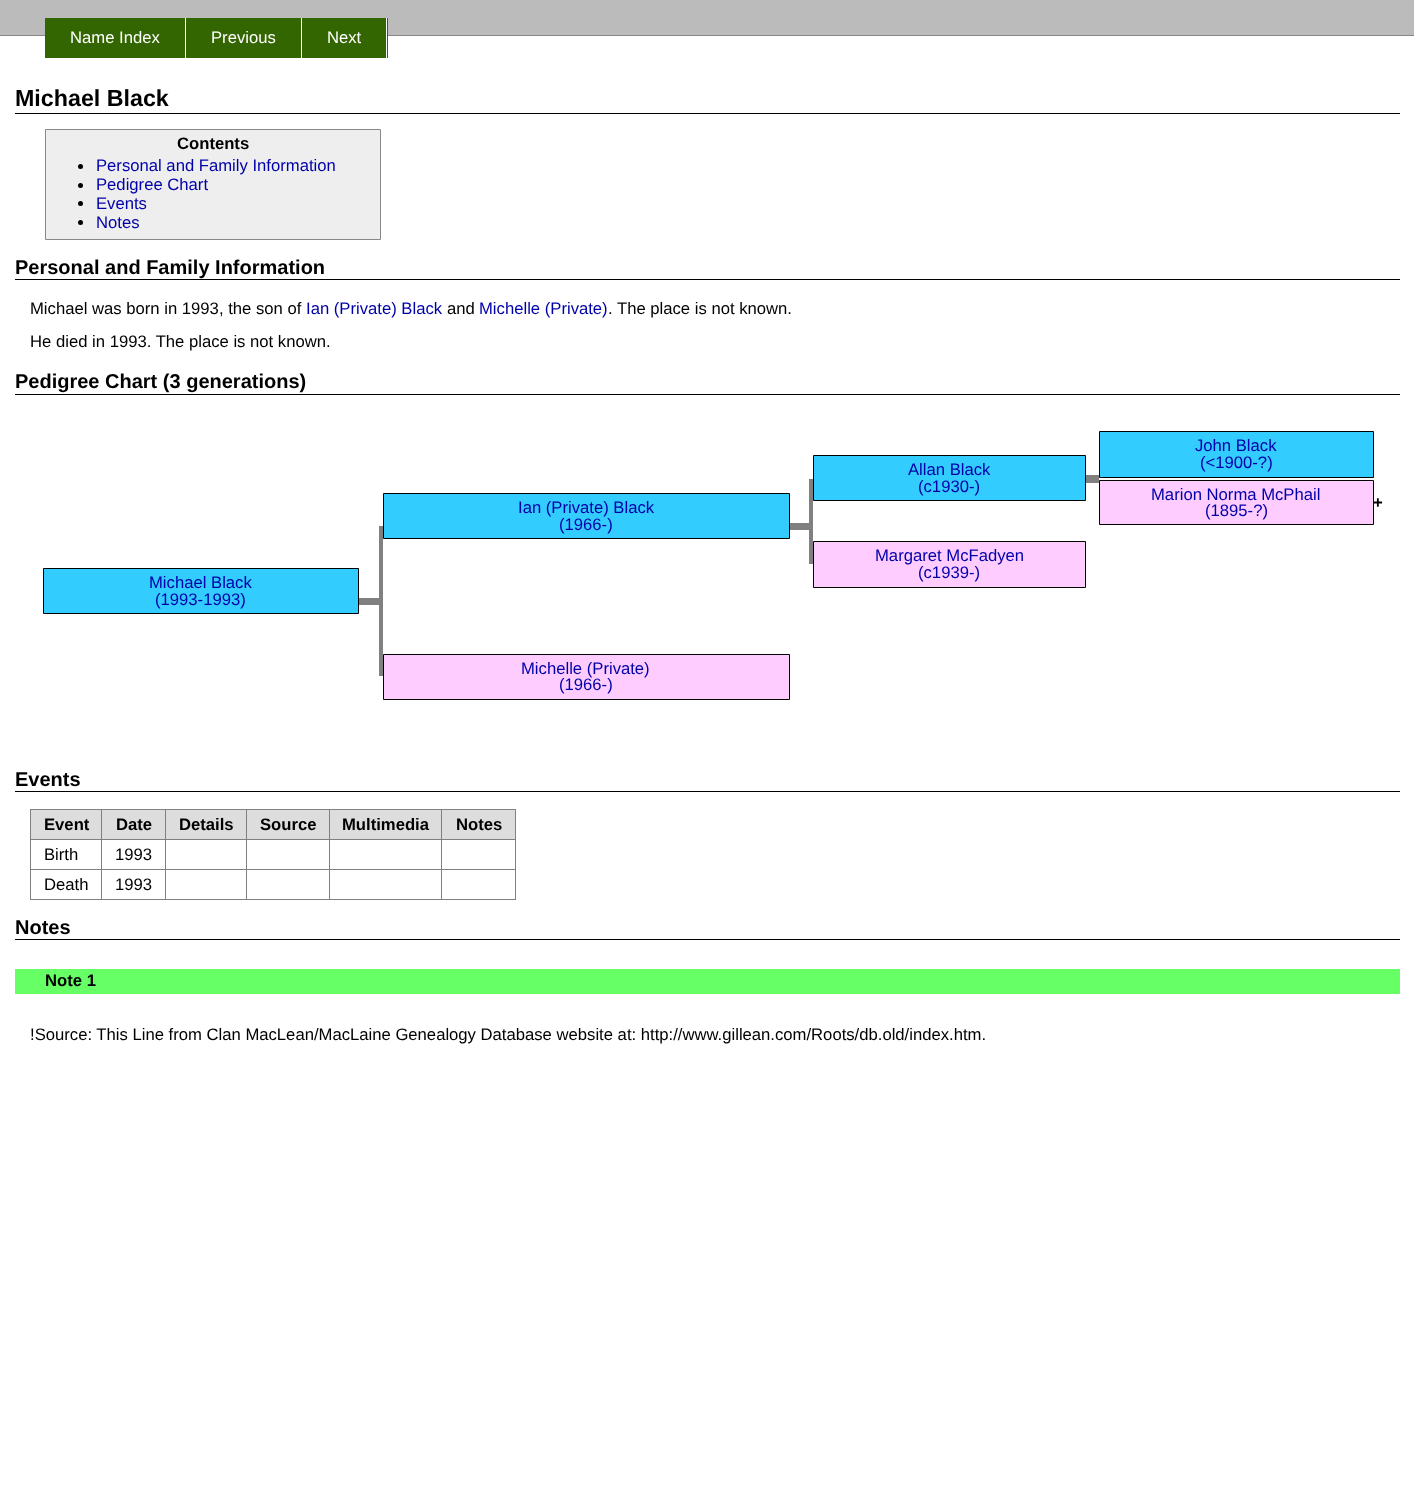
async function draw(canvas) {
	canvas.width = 1414;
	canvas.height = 1490;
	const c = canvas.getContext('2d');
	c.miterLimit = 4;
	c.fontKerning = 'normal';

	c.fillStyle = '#fff';
	c.fillRect(0, 0, 1414, 1490);
	for (const [x, y, w, h, color] of [
		[0, 0, 1414, 35, '#bbb'],
		[0, 35, 1414, 1, '#888'],
		[45, 18, 140, 40, '#360'],
		[185, 18, 1, 18, '#fff'],
	]) {
		c.fillStyle = color;
		c.fillRect(x, y, w, h);
	}
	c.font = '16.67px Liberation Sans';
	c.fillText('Name Index', 70, 43);
	c.fillStyle = '#360';
	c.fillRect(186, 18, 202, 40);
	c.fillStyle = '#fff';
	c.fillRect(301, 18, 1, 40);
	c.fillText('Previous', 211, 43);
	c.fillRect(386, 18, 1, 40);
	c.fillText('Next', 327, 43);
	c.fillStyle = '#000';
	c.fillRect(15, 113, 1385, 1);
	c.font = 'bold 23.25px Liberation Sans';
	c.fillText('Michael Black', 15, 106);
	c.fillStyle = '#eee';
	c.beginPath();
	c.rect(45.5, 129.5, 335, 110);
	c.fill();
	c.strokeStyle = '#888';
	c.stroke();
	c.font = 'bold 16.67px Liberation Sans';
	c.fillStyle = '#000';
	c.fillText('Contents', 177, 149);
	c.beginPath();
	c.arc(80.5, 166.5, 2.5, 0, 2 * Math.PI);
	c.fill();
	c.font = '16.67px Liberation Sans';
	c.fillStyle = '#00a';
	c.fillText('Personal and Family Information', 96, 171);
	c.fillStyle = '#000';
	c.beginPath();
	c.arc(80.5, 185.5, 2.5, 0, 2 * Math.PI);
	c.fill();
	c.fillStyle = '#00a';
	c.fillText('Pedigree Chart', 96, 190);
	c.fillStyle = '#000';
	c.beginPath();
	c.arc(80.5, 203.5, 2.5, 0, 2 * Math.PI);
	c.fill();
	c.fillStyle = '#00a';
	c.fillText('Events', 96, 209);
	c.fillStyle = '#000';
	c.beginPath();
	c.arc(80.5, 222.5, 2.5, 0, 2 * Math.PI);
	c.fill();
	c.fillStyle = '#00a';
	c.fillText('Notes', 96, 228);
	c.fillStyle = '#000';
	c.fillRect(15, 279, 1385, 1);
	c.font = 'bold 20px Liberation Sans';
	c.fillText('Personal and Family Information', 15, 274);
	c.font = '16.67px Liberation Sans';
	c.fillText('Michael was born in 1993, the son of', 30, 314);
	c.fillStyle = '#00a';
	c.fillText('Ian (Private) Black', 306, 314);
	c.fillStyle = '#000';
	c.fillText('and', 447, 314);
	c.fillStyle = '#00a';
	c.fillText('Michelle (Private)', 479, 314);
	c.fillStyle = '#000';
	c.fillText('. The place is not known.', 608, 314);
	c.fillText('He died in 1993. The place is not known.', 30, 347);
	c.fillRect(15, 394, 1385, 1);
	c.font = 'bold 20px Liberation Sans';
	c.fillText('Pedigree Chart (3 generations)', 15, 388);
	c.fillStyle = '#3cf';
	c.beginPath();
	c.rect(1099.5, 431.5, 274, 46);
	c.fill();
	c.strokeStyle = '#000';
	c.stroke();
	c.font = '16.67px Liberation Sans';
	c.fillStyle = '#00a';
	c.fillText('John Black', 1195, 451);
	c.fillText('(<1900-?)', 1200, 468);
	c.fillStyle = '#3cf';
	c.beginPath();
	c.rect(813.5, 455.5, 272, 45);
	c.fill();
	c.stroke();
	c.fillStyle = '#00a';
	c.fillText('Allan Black', 908, 475);
	c.fillText('(c1930-)', 918, 492);
	c.fillStyle = '#808080';
	c.fillRect(1086, 475, 13, 8);
	c.fillStyle = '#3cf';
	c.beginPath();
	c.rect(383.5, 493.5, 406, 45);
	c.fill();
	c.stroke();
	c.fillStyle = '#00a';
	c.fillText('Ian (Private) Black', 518, 513);
	c.fillText('(1966-)', 559, 530);
	c.fillStyle = '#3cf';
	c.beginPath();
	c.rect(43.5, 568.5, 315, 45);
	c.fill();
	c.stroke();
	c.fillStyle = '#00a';
	c.fillText('Michael Black', 149, 588);
	c.fillText('(1993-1993)', 155, 605);
	c.fillStyle = '#808080';
	c.fillRect(809, 479, 4, 47);
	c.fillRect(790, 523, 23, 7);
	c.fillStyle = '#fcf';
	c.beginPath();
	c.rect(1099.5, 480.5, 274, 44);
	c.fill();
	c.stroke();
	c.fillStyle = '#00a';
	c.fillText('Marion Norma McPhail', 1151, 500);
	c.fillText('(1895-?)', 1205, 516);
	c.font = 'bold 16.67px Liberation Sans';
	c.fillStyle = '#000';
	c.fillText('+', 1373, 508);
	for (const [x, y, w, h, color] of [
		[379, 526, 4, 75, '#808080'],
		[359, 598, 24, 7, '#808080'],
		[809, 526, 4, 38, '#808080'],
	]) {
		c.fillStyle = color;
		c.fillRect(x, y, w, h);
	}
	c.fillStyle = '#fcf';
	c.beginPath();
	c.rect(813.5, 541.5, 272, 46);
	c.fill();
	c.stroke();
	c.font = '16.67px Liberation Sans';
	c.fillStyle = '#00a';
	c.fillText('Margaret McFadyen', 875, 561);
	c.fillText('(c1939-)', 918, 578);
	c.fillStyle = '#808080';
	c.fillRect(379, 601, 4, 75);
	c.fillStyle = '#fcf';
	c.beginPath();
	c.rect(383.5, 654.5, 406, 45);
	c.fill();
	c.stroke();
	c.fillStyle = '#00a';
	c.fillText('Michelle (Private)', 521, 674);
	c.fillText('(1966-)', 559, 690);
	c.fillStyle = '#000';
	c.fillRect(15, 791, 1385, 1);
	c.font = 'bold 20px Liberation Sans';
	c.fillText('Events', 15, 786);
	for (const [x, y, w, h, color] of [
		[31, 810, 134, 29, '#ddd'],
		[441, 809, 75, 1, '#808080'],
		[330, 810, 185, 29, '#ddd'],
		[441, 839, 75, 1, '#808080'],
		[441, 869, 75, 1, '#808080'],
		[515, 869, 1, 31, '#808080'],
		[441, 899, 75, 1, '#808080'],
		[441, 869, 1, 31, '#808080'],
		[329, 869, 114, 1, '#808080'],
		[441, 839, 1, 31, '#808080'],
		[329, 839, 114, 1, '#808080'],
		[441, 809, 1, 31, '#808080'],
		[329, 809, 114, 1, '#808080'],
		[329, 899, 114, 1, '#808080'],
		[329, 869, 1, 31, '#808080'],
		[246, 869, 84, 1, '#808080'],
		[329, 839, 1, 31, '#808080'],
		[246, 839, 84, 1, '#808080'],
		[329, 809, 1, 31, '#808080'],
		[246, 809, 84, 1, '#808080'],
		[246, 899, 84, 1, '#808080'],
		[246, 869, 1, 31, '#808080'],
		[165, 869, 83, 1, '#808080'],
		[246, 839, 1, 31, '#808080'],
		[165, 839, 83, 1, '#808080'],
		[246, 809, 1, 31, '#808080'],
		[165, 809, 83, 1, '#808080'],
		[165, 899, 83, 1, '#808080'],
		[165, 869, 1, 31, '#808080'],
		[101, 869, 65, 1, '#808080'],
		[165, 839, 1, 31, '#808080'],
		[101, 839, 65, 1, '#808080'],
		[165, 809, 1, 31, '#808080'],
		[101, 809, 65, 1, '#808080'],
		[101, 899, 65, 1, '#808080'],
		[101, 869, 1, 31, '#808080'],
		[30, 869, 73, 1, '#808080'],
		[101, 839, 1, 31, '#808080'],
		[30, 839, 73, 1, '#808080'],
		[101, 809, 1, 31, '#808080'],
		[30, 809, 73, 1, '#808080'],
		[30, 899, 73, 1, '#808080'],
		[30, 869, 1, 31, '#808080'],
		[30, 839, 1, 31, '#808080'],
		[30, 809, 1, 31, '#808080'],
	]) {
		c.fillStyle = color;
		c.fillRect(x, y, w, h);
	}
	c.font = 'bold 16.67px Liberation Sans';
	c.fillStyle = '#000';
	c.fillText('Event', 44, 830);
	c.fillText('Date', 116, 830);
	c.fillStyle = '#ddd';
	c.fillRect(166, 810, 80, 29);
	c.fillStyle = '#000';
	c.fillText('Details', 179, 830);
	c.fillStyle = '#ddd';
	c.fillRect(247, 810, 82, 29);
	c.fillStyle = '#000';
	c.fillText('Source', 260, 830);
	c.fillText('Multimedia', 342, 830);
	c.fillStyle = '#808080';
	c.fillRect(515, 839, 1, 31);
	c.fillRect(515, 809, 1, 31);
	c.fillStyle = '#000';
	c.fillText('Notes', 456, 830);
	c.font = '16.67px Liberation Sans';
	for (const [text, x, y] of [
		['Birth', 44, 860],
		['1993', 115, 860],
		['Death', 44, 890],
		['1993', 115, 890],
	]) {
		c.fillText(text, x, y);
	}
	c.fillRect(15, 939, 1385, 1);
	c.font = 'bold 20px Liberation Sans';
	c.fillText('Notes', 15, 934);
	c.fillStyle = '#6f6';
	c.fillRect(15, 969, 1385, 25);
	c.font = 'bold 16.67px Liberation Sans';
	c.fillStyle = '#000';
	c.fillText('Note 1', 45, 986);
	c.font = '16.67px Liberation Sans';
	c.fillText('!Source: This Line from Clan MacLean/MacLaine Genealogy Database website at: http://www.gillean.com/Roots/db.old/index.htm.', 30, 1040);
}

draw(document.querySelector('canvas'));
